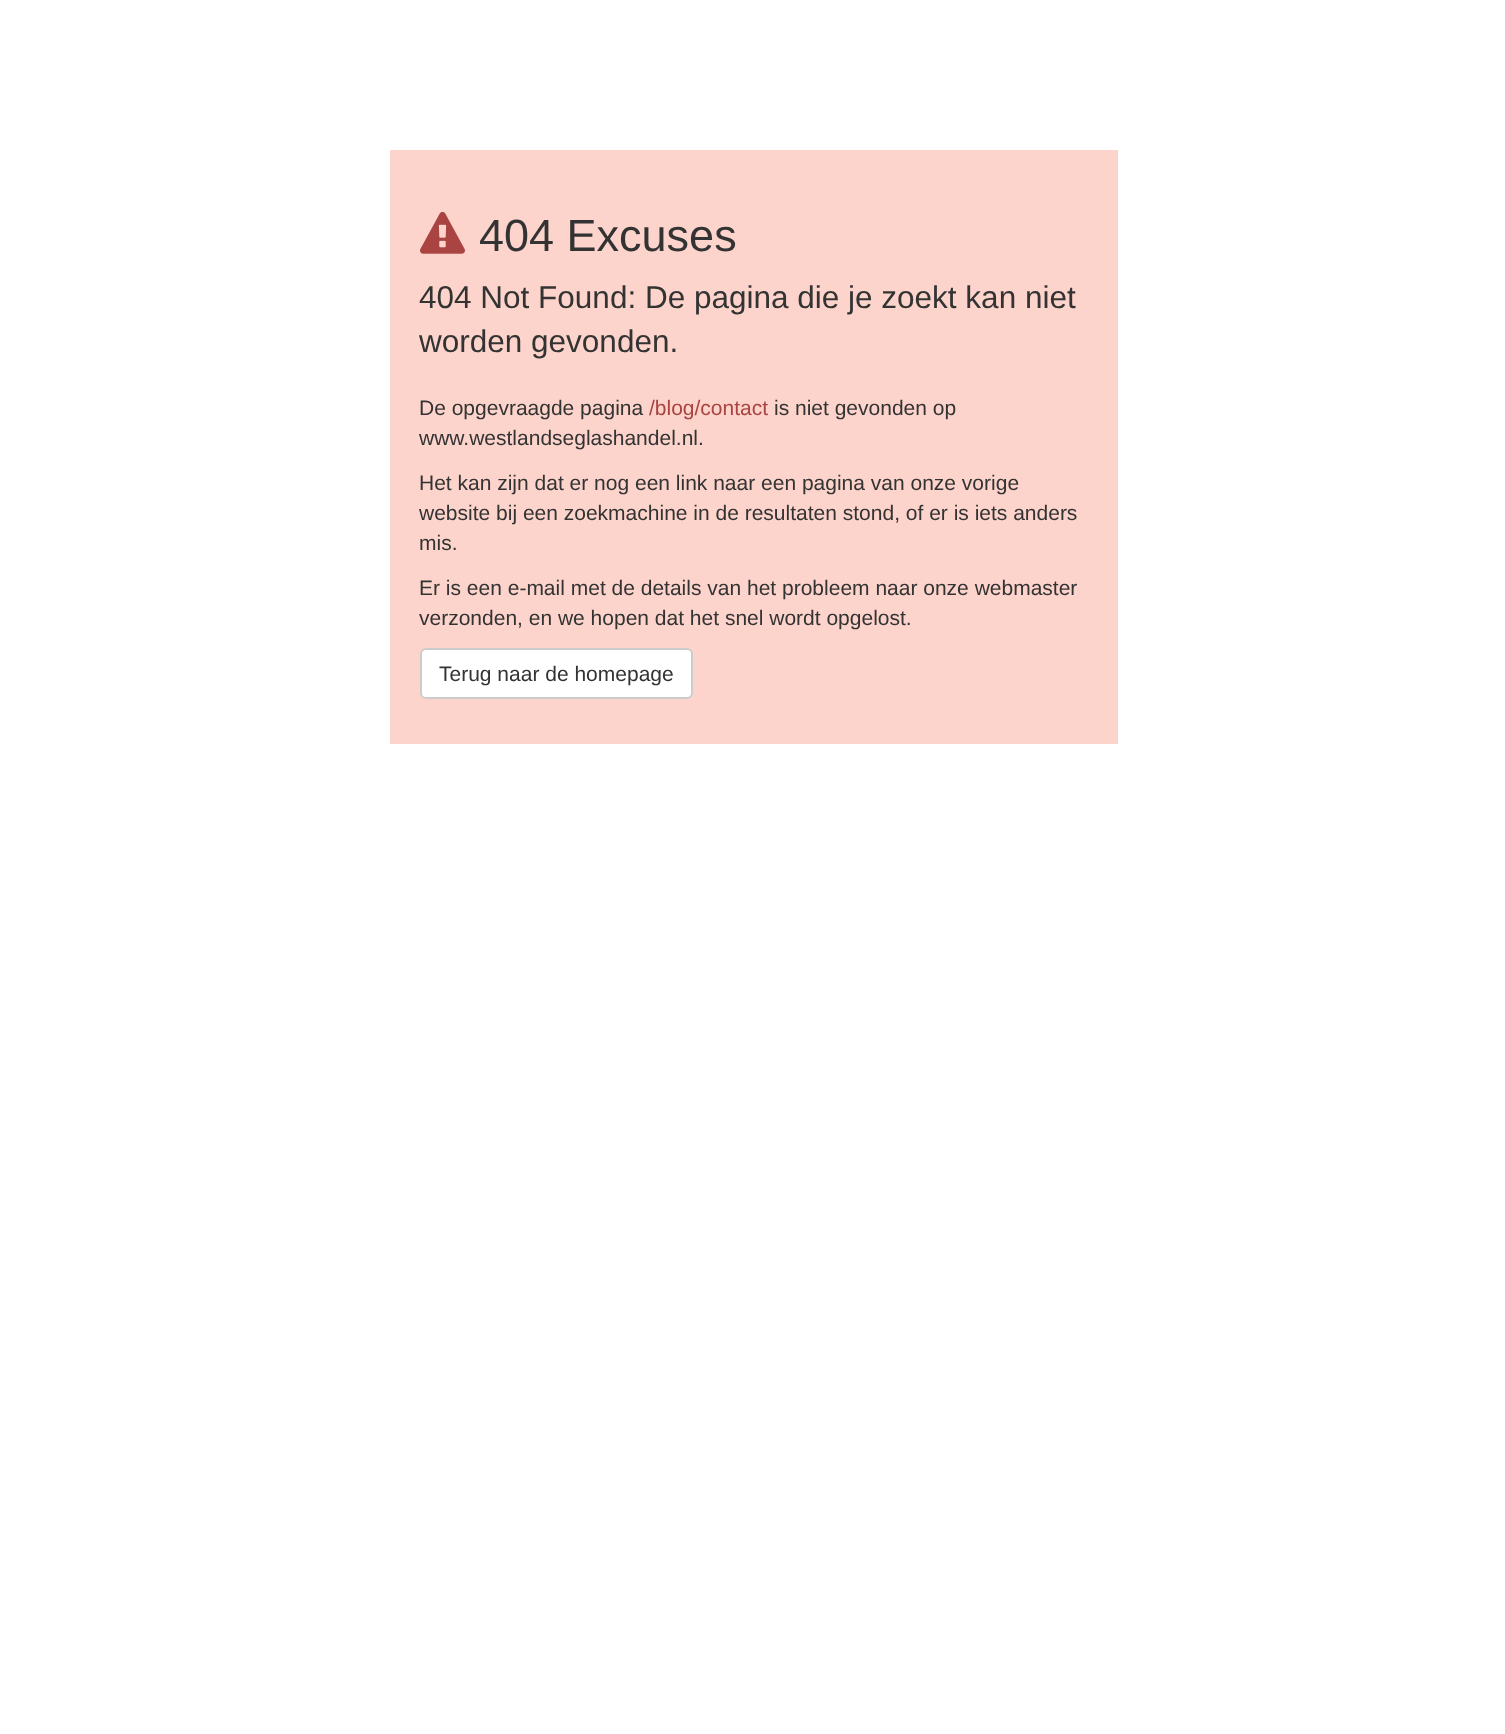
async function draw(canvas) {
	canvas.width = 1505;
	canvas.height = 1734;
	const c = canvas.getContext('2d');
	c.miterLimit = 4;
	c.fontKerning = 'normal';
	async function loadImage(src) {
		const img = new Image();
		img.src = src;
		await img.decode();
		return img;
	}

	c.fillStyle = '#fff';
	c.fillRect(0, 0, 1505, 1734);
	c.fillStyle = '#fdd4cb';
	c.fillRect(390, 150, 728, 594);
	c.drawImage(await loadImage('img1.png'), 420, 211, 45, 43);
	c.font = '45px Liberation Sans';
	c.fillStyle = '#333';
	c.fillText('404 Excuses', 479, 251);
	c.font = '31.5px Liberation Sans';
	c.fillText('404 Not Found: De pagina die je zoekt kan niet', 419, 308);
	c.fillText('worden gevonden.', 419, 352);
	c.font = '21px Liberation Sans';
	c.fillText('De opgevraagde pagina', 419, 415);
	c.fillStyle = '#a94442';
	c.fillText('/blog/contact', 649, 415);
	c.fillStyle = '#333';
	for (const [text, x, y] of [
		['is niet gevonden op', 774, 415],
		['www.westlandseglashandel.nl.', 419, 445],
		['Het kan zijn dat er nog een link naar een pagina van onze vorige', 419, 490],
		['website bij een zoekmachine in de resultaten stond, of er is iets anders', 419, 520],
		['mis.', 419, 550],
		['Er is een e-mail met de details van het probleem naar onze webmaster', 419, 595],
		['verzonden, en we hopen dat het snel wordt opgelost.', 419, 625],
	]) {
		c.fillText(text, x, y);
	}
	c.fillStyle = '#fff';
	c.beginPath();
	c.roundRect(421, 649, 271, 49, 5);
	c.fill();
	c.strokeStyle = '#ccc';
	c.lineWidth = 2;
	c.stroke();
	c.fillStyle = '#333';
	c.fillText('Terug naar de homepage', 439, 681);
}

draw(document.querySelector('canvas'));
